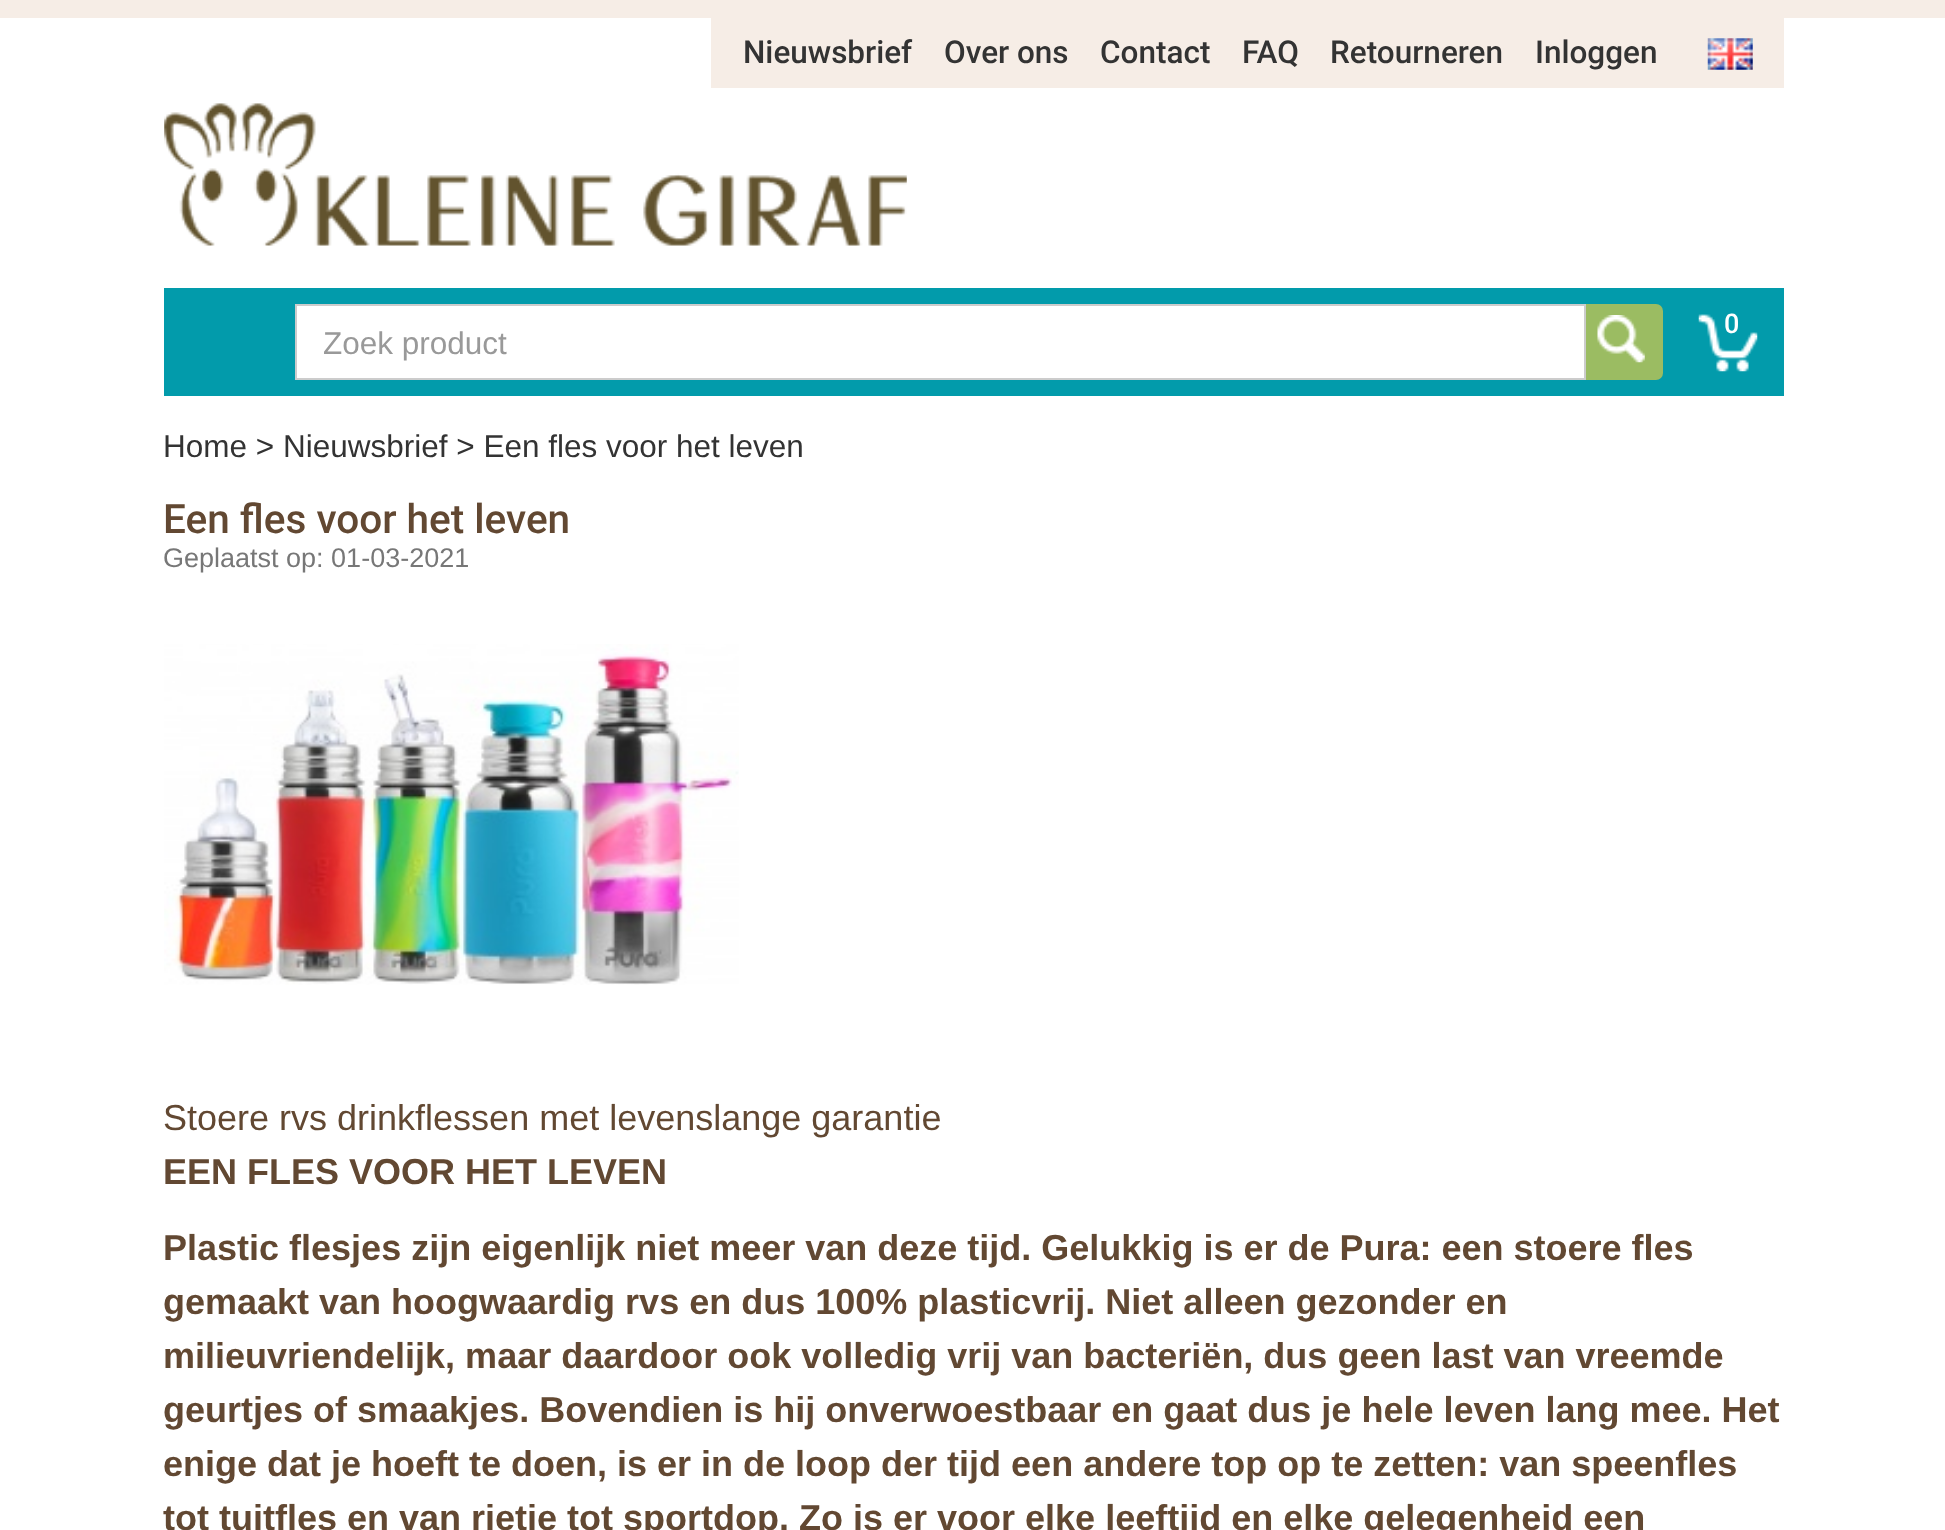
async function draw(canvas) {
	canvas.width = 1945;
	canvas.height = 1530;
	const c = canvas.getContext('2d');
	c.miterLimit = 4;
	c.fontKerning = 'normal';
	async function loadImage(src) {
		const img = new Image();
		img.src = src;
		await img.decode();
		return img;
	}

	c.fillStyle = '#fff';
	c.fillRect(0, 0, 1945, 1530);
	c.fillStyle = '#f6ede6';
	c.fillRect(0, 0, 1945, 18);
	c.fillRect(711, 18, 1073, 70);
	c.font = '500 31.5px Roboto';
	c.fillStyle = '#333';
	for (const [text, x, y] of [
		['Nieuwsbrief', 743, 63],
		['Over ons', 944, 63],
		['Contact', 1100, 63],
		['FAQ', 1242, 63],
		['Retourneren', 1330, 63],
		['Inloggen', 1535, 63],
	]) {
		c.fillText(text, x, y);
	}
	c.drawImage(await loadImage('img1.png'), 1707, 38, 46, 32);
	c.drawImage(await loadImage('img2.png'), 164, 103, 743, 143);
	c.fillStyle = '#029bab';
	c.fillRect(164, 288, 1620, 108);
	c.drawImage(await loadImage('img3.png'), 1698, 314, 60, 58);
	c.font = '500 27px Roboto';
	c.fillStyle = '#fff';
	c.fillText('0', 1724, 333);
	c.fillStyle = '#9bbc62';
	c.beginPath();
	c.roundRect(1584, 304, 79, 76, [0, 7, 7, 0]);
	c.fill();
	c.fillStyle = '#fff';
	c.beginPath();
	c.rect(296, 305, 1289, 74);
	c.fill();
	c.strokeStyle = '#ccc';
	c.lineWidth = 2;
	c.stroke();
	c.font = '31.5px Liberation Sans';
	c.fillStyle = '#999';
	c.fillText('Zoek product', 323, 354);
	c.drawImage(await loadImage('img4.png'), 1597, 315, 48, 48);
	c.fillStyle = '#333';
	c.fillText('Home > Nieuwsbrief > Een fles voor het leven', 163, 457);
	c.font = '500 40.5px Roboto';
	c.fillStyle = '#624832';
	c.fillText('Een fles voor het leven', 163, 533);
	c.font = '27px Liberation Sans';
	c.fillStyle = '#777';
	c.fillText('Geplaatst op: 01-03-2021', 163, 567);
	c.drawImage(await loadImage('img5.png'), 164, 644, 575, 341);
	c.font = '36px Liberation Sans';
	c.fillStyle = '#624832';
	c.fillText('Stoere rvs drinkflessen met levenslange garantie', 163, 1130);
	c.font = 'bold 36px Liberation Sans';
	for (const [text, x, y] of [
		['EEN FLES VOOR HET LEVEN', 163, 1184],
		['Plastic flesjes zijn eigenlijk niet meer van deze tijd. Gelukkig is er de Pura: een stoere fles', 163, 1260],
		['gemaakt van hoogwaardig rvs en dus 100% plasticvrij. Niet alleen gezonder en', 163, 1314],
		['milieuvriendelijk, maar daardoor ook volledig vrij van bacteriën, dus geen last van vreemde', 163, 1368],
		['geurtjes of smaakjes. Bovendien is hij onverwoestbaar en gaat dus je hele leven lang mee. Het', 163, 1422],
		['enige dat je hoeft te doen, is er in de loop der tijd een andere top op te zetten: van speenfles', 163, 1476],
		['tot tuitfles en van rietje tot sportdop. Zo is er voor elke leeftijd en elke gelegenheid een', 163, 1530],
	]) {
		c.fillText(text, x, y);
	}
}

draw(document.querySelector('canvas'));
